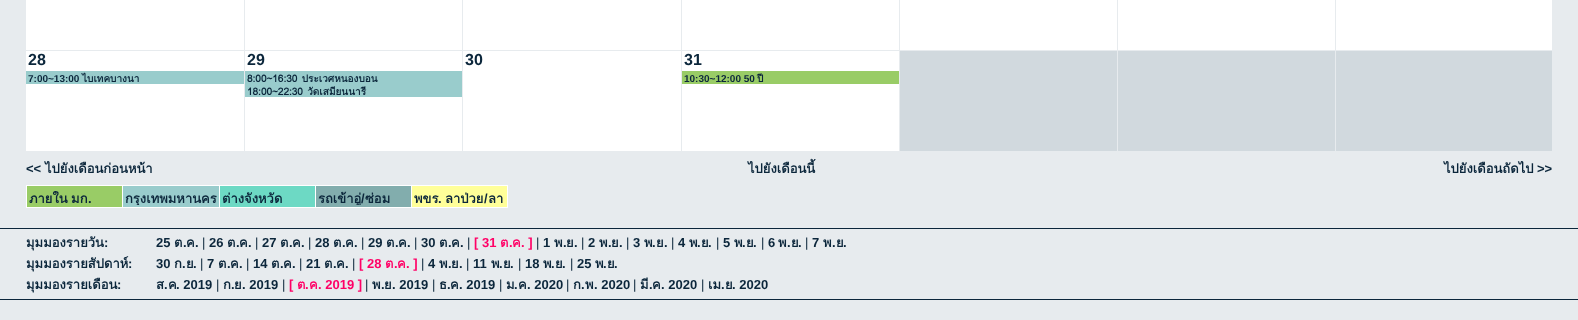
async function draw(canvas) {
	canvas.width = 1578;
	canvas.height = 320;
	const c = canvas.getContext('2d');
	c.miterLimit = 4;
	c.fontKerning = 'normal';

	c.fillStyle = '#e7ebee';
	c.fillRect(0, 0, 1578, 320);
	for (const [x, y, w, h, color] of [
		[26, 0, 218, 50, '#fff'],
		[245, 0, 217, 50, '#fff'],
		[463, 0, 218, 50, '#fff'],
		[682, 0, 217, 50, '#fff'],
		[900, 0, 217, 50, '#fff'],
		[1118, 0, 217, 50, '#fff'],
		[1336, 0, 216, 50, '#fff'],
		[26, 51, 218, 100, '#fff'],
	]) {
		c.fillStyle = color;
		c.fillRect(x, y, w, h);
	}
	c.font = 'bold 16px Liberation Sans';
	c.fillStyle = '#0b263b';
	c.fillText('28', 28, 65);
	c.fillStyle = '#9cc';
	c.fillRect(26, 71, 218, 13);
	c.font = 'bold 10px Liberation Sans';
	c.fillStyle = '#0b263b';
	c.fillText('7:00~13:00', 28, 82);
	c.font = 'bold 10px Loma';
	c.fillText('ไบเทคบางนา', 82, 82);
	c.fillStyle = '#fff';
	c.fillRect(245, 51, 217, 100);
	c.font = 'bold 16px Liberation Sans';
	c.fillStyle = '#0b263b';
	c.fillText('29', 247, 65);
	c.fillStyle = '#9cc';
	c.fillRect(245, 71, 217, 26);
	c.wordSpacing = '1px';
	c.font = 'bold 10px Loma';
	c.fillStyle = '#0b263b';
	c.fillText('8:00~16:30 ประเวศหนองบอน', 247, 82);
	c.fillText('18:00~22:30 วัดเสมียนนารี', 247, 95);
	c.fillStyle = '#fff';
	c.fillRect(463, 51, 218, 100);
	c.wordSpacing = '0px';
	c.font = 'bold 16px Liberation Sans';
	c.fillStyle = '#0b263b';
	c.fillText('30', 465, 65);
	c.fillStyle = '#fff';
	c.fillRect(682, 51, 217, 100);
	c.fillStyle = '#0b263b';
	c.fillText('31', 684, 65);
	c.fillStyle = '#9c6';
	c.fillRect(682, 71, 217, 13);
	c.font = 'bold 10px Liberation Sans';
	c.fillStyle = '#0b263b';
	c.fillText('10:30~12:00 50', 684, 82);
	c.font = 'bold 10px Loma';
	c.fillText('ปี', 757, 82);
	for (const [x, y, w, h, color] of [
		[900, 51, 217, 100, '#d1d9de'],
		[1118, 51, 217, 100, '#d1d9de'],
		[1336, 51, 216, 100, '#d1d9de'],
	]) {
		c.fillStyle = color;
		c.fillRect(x, y, w, h);
	}
	c.font = 'bold 13px Liberation Sans';
	c.fillStyle = '#0b263b';
	c.fillText('<<', 26, 173);
	c.font = 'bold 13px Loma';
	for (const [text, x, y] of [
		['ไปยังเดือนก่อนหน้า', 45, 173],
		['ไปยังเดือนนี้', 748, 173],
		['ไปยังเดือนถัดไป', 1444, 173],
	]) {
		c.fillText(text, x, y);
	}
	c.font = 'bold 13px Liberation Sans';
	c.fillText('>>', 1537, 173);
	for (const [x, y, w, h, color] of [
		[27, 186, 95, 21, '#9c6'],
		[411, 185, 97, 1, '#fff'],
		[507, 185, 1, 23, '#fff'],
		[411, 207, 97, 1, '#fff'],
		[411, 185, 1, 23, '#fff'],
		[315, 185, 97, 1, '#fff'],
		[315, 207, 97, 1, '#fff'],
		[315, 185, 1, 23, '#fff'],
		[219, 185, 97, 1, '#fff'],
		[219, 207, 97, 1, '#fff'],
		[219, 185, 1, 23, '#fff'],
		[122, 185, 98, 1, '#fff'],
		[122, 207, 98, 1, '#fff'],
		[122, 185, 1, 23, '#fff'],
		[26, 185, 97, 1, '#fff'],
		[26, 207, 97, 1, '#fff'],
		[26, 185, 1, 23, '#fff'],
	]) {
		c.fillStyle = color;
		c.fillRect(x, y, w, h);
	}
	c.wordSpacing = '-1px';
	c.font = 'bold 13px Loma';
	c.fillStyle = '#0b263b';
	c.fillText('ภายใน มก', 29, 203);
	c.wordSpacing = '0px';
	c.font = 'bold 13px Liberation Sans';
	c.fillText('.', 88, 203);
	c.fillStyle = '#9cc';
	c.fillRect(123, 186, 96, 21);
	c.save();
	c.beginPath();
	c.rect(125, 188, 92, 17);
	c.clip();
	c.font = 'bold 13px Loma';
	c.fillStyle = '#0b263b';
	c.fillText('กรุงเทพมหานคร', 125, 203);
	c.restore();
	c.fillStyle = '#6dd9c4';
	c.fillRect(220, 186, 95, 21);
	c.save();
	c.beginPath();
	c.rect(222, 188, 91, 17);
	c.clip();
	c.font = 'bold 13px Loma';
	c.fillStyle = '#0b263b';
	c.fillText('ต่างจังหวัด', 222, 203);
	c.restore();
	c.fillStyle = '#82adad';
	c.fillRect(316, 186, 95, 21);
	c.save();
	c.beginPath();
	c.rect(318, 188, 91, 17);
	c.clip();
	c.font = 'bold 13px Loma';
	c.fillStyle = '#0b263b';
	c.fillText('รถเข้าอู่', 318, 203);
	c.restore();
	c.fillStyle = '#0b263b';
	c.fillText('/', 361, 203);
	c.font = 'bold 13px Loma';
	c.fillText('ซ่อม', 365, 203);
	c.fillStyle = '#ff9';
	c.fillRect(412, 186, 95, 21);
	c.fillStyle = '#0b263b';
	c.fillText('พขร', 414, 203);
	c.font = 'bold 13px Liberation Sans';
	c.fillText('.', 438, 203);
	c.font = 'bold 13px Loma';
	c.fillText('ลาป่วย', 445, 203);
	c.font = 'bold 13px Liberation Sans';
	c.fillText('/', 484, 203);
	c.font = 'bold 13px Loma';
	c.fillText('ลา', 488, 203);
	c.fillRect(0, 228, 1578, 1);
	c.fillRect(0, 299, 1578, 1);
	c.fillText('มุมมองรายวัน', 26, 247);
	c.font = 'bold 13px Liberation Sans';
	c.fillText(':', 104, 247);
	c.fillText('25', 156, 247);
	c.font = 'bold 13px Loma';
	c.fillText('ต', 174, 247);
	c.font = 'bold 13px Liberation Sans';
	c.fillText('.', 183, 247);
	c.font = 'bold 13px Loma';
	c.fillText('ค', 186, 247);
	c.font = 'bold 13px Liberation Sans';
	c.fillText('.', 195, 247);
	c.font = '13px Liberation Sans';
	c.fillText('|', 202, 247);
	c.font = 'bold 13px Liberation Sans';
	c.fillText('26', 209, 247);
	c.font = 'bold 13px Loma';
	c.fillText('ต', 227, 247);
	c.font = 'bold 13px Liberation Sans';
	c.fillText('.', 236, 247);
	c.font = 'bold 13px Loma';
	c.fillText('ค', 239, 247);
	c.font = 'bold 13px Liberation Sans';
	c.fillText('.', 248, 247);
	c.font = '13px Liberation Sans';
	c.fillText('|', 255, 247);
	c.font = 'bold 13px Liberation Sans';
	c.fillText('27', 262, 247);
	c.font = 'bold 13px Loma';
	c.fillText('ต', 280, 247);
	c.font = 'bold 13px Liberation Sans';
	c.fillText('.', 289, 247);
	c.font = 'bold 13px Loma';
	c.fillText('ค', 292, 247);
	c.font = 'bold 13px Liberation Sans';
	c.fillText('.', 301, 247);
	c.font = '13px Liberation Sans';
	c.fillText('|', 308, 247);
	c.font = 'bold 13px Liberation Sans';
	c.fillText('28', 315, 247);
	c.font = 'bold 13px Loma';
	c.fillText('ต', 333, 247);
	c.font = 'bold 13px Liberation Sans';
	c.fillText('.', 342, 247);
	c.font = 'bold 13px Loma';
	c.fillText('ค', 345, 247);
	c.font = 'bold 13px Liberation Sans';
	c.fillText('.', 354, 247);
	c.font = '13px Liberation Sans';
	c.fillText('|', 361, 247);
	c.font = 'bold 13px Liberation Sans';
	c.fillText('29', 368, 247);
	c.font = 'bold 13px Loma';
	c.fillText('ต', 386, 247);
	c.font = 'bold 13px Liberation Sans';
	c.fillText('.', 395, 247);
	c.font = 'bold 13px Loma';
	c.fillText('ค', 398, 247);
	c.font = 'bold 13px Liberation Sans';
	c.fillText('.', 407, 247);
	c.font = '13px Liberation Sans';
	c.fillText('|', 414, 247);
	c.font = 'bold 13px Liberation Sans';
	c.fillText('30', 421, 247);
	c.font = 'bold 13px Loma';
	c.fillText('ต', 439, 247);
	c.font = 'bold 13px Liberation Sans';
	c.fillText('.', 448, 247);
	c.font = 'bold 13px Loma';
	c.fillText('ค', 451, 247);
	c.font = 'bold 13px Liberation Sans';
	c.fillText('.', 460, 247);
	c.font = '13px Liberation Sans';
	c.fillText('|', 467, 247);
	c.font = 'bold 13px Liberation Sans';
	c.fillStyle = '#f06';
	c.fillText('[ 31', 474, 247);
	c.font = 'bold 13px Loma';
	c.fillText('ต', 500, 247);
	c.font = 'bold 13px Liberation Sans';
	c.fillText('.', 509, 247);
	c.font = 'bold 13px Loma';
	c.fillText('ค', 512, 247);
	c.font = 'bold 13px Liberation Sans';
	c.fillText('. ]', 521, 247);
	c.font = '13px Liberation Sans';
	c.fillStyle = '#0b263b';
	c.fillText('|', 536, 247);
	c.font = 'bold 13px Liberation Sans';
	c.fillText('1', 543, 247);
	c.font = 'bold 13px Loma';
	c.fillText('พ', 554, 247);
	c.font = 'bold 13px Liberation Sans';
	c.fillText('.', 563, 247);
	c.font = 'bold 13px Loma';
	c.fillText('ย', 566, 247);
	c.font = 'bold 13px Liberation Sans';
	c.fillText('.', 574, 247);
	c.font = '13px Liberation Sans';
	c.fillText('|', 581, 247);
	c.font = 'bold 13px Liberation Sans';
	c.fillText('2', 588, 247);
	c.font = 'bold 13px Loma';
	c.fillText('พ', 599, 247);
	c.font = 'bold 13px Liberation Sans';
	c.fillText('.', 608, 247);
	c.font = 'bold 13px Loma';
	c.fillText('ย', 611, 247);
	c.font = 'bold 13px Liberation Sans';
	c.fillText('.', 619, 247);
	c.font = '13px Liberation Sans';
	c.fillText('|', 626, 247);
	c.font = 'bold 13px Liberation Sans';
	c.fillText('3', 633, 247);
	c.font = 'bold 13px Loma';
	c.fillText('พ', 644, 247);
	c.font = 'bold 13px Liberation Sans';
	c.fillText('.', 652, 247);
	c.font = 'bold 13px Loma';
	c.fillText('ย', 656, 247);
	c.font = 'bold 13px Liberation Sans';
	c.fillText('.', 664, 247);
	c.font = '13px Liberation Sans';
	c.fillText('|', 671, 247);
	c.font = 'bold 13px Liberation Sans';
	c.fillText('4', 678, 247);
	c.font = 'bold 13px Loma';
	c.fillText('พ', 689, 247);
	c.font = 'bold 13px Liberation Sans';
	c.fillText('.', 697, 247);
	c.font = 'bold 13px Loma';
	c.fillText('ย', 701, 247);
	c.font = 'bold 13px Liberation Sans';
	c.fillText('.', 708, 247);
	c.font = '13px Liberation Sans';
	c.fillText('|', 716, 247);
	c.font = 'bold 13px Liberation Sans';
	c.fillText('5', 723, 247);
	c.font = 'bold 13px Loma';
	c.fillText('พ', 734, 247);
	c.font = 'bold 13px Liberation Sans';
	c.fillText('.', 742, 247);
	c.font = 'bold 13px Loma';
	c.fillText('ย', 746, 247);
	c.font = 'bold 13px Liberation Sans';
	c.fillText('.', 753, 247);
	c.font = '13px Liberation Sans';
	c.fillText('|', 761, 247);
	c.font = 'bold 13px Liberation Sans';
	c.fillText('6', 768, 247);
	c.font = 'bold 13px Loma';
	c.fillText('พ', 778, 247);
	c.font = 'bold 13px Liberation Sans';
	c.fillText('.', 787, 247);
	c.font = 'bold 13px Loma';
	c.fillText('ย', 791, 247);
	c.font = 'bold 13px Liberation Sans';
	c.fillText('.', 798, 247);
	c.font = '13px Liberation Sans';
	c.fillText('|', 805, 247);
	c.font = 'bold 13px Liberation Sans';
	c.fillText('7', 812, 247);
	c.font = 'bold 13px Loma';
	c.fillText('พ', 823, 247);
	c.font = 'bold 13px Liberation Sans';
	c.fillText('.', 832, 247);
	c.font = 'bold 13px Loma';
	c.fillText('ย', 836, 247);
	c.font = 'bold 13px Liberation Sans';
	c.fillText('.', 843, 247);
	c.font = 'bold 13px Loma';
	c.fillText('มุมมองรายสัปดาห์', 26, 268);
	c.font = 'bold 13px Liberation Sans';
	c.fillText(':', 128, 268);
	c.fillText('30', 156, 268);
	c.font = 'bold 13px Loma';
	c.fillText('ก', 174, 268);
	c.font = 'bold 13px Liberation Sans';
	c.fillText('.', 182, 268);
	c.font = 'bold 13px Loma';
	c.fillText('ย', 186, 268);
	c.font = 'bold 13px Liberation Sans';
	c.fillText('.', 193, 268);
	c.font = '13px Liberation Sans';
	c.fillText('|', 200, 268);
	c.font = 'bold 13px Liberation Sans';
	c.fillText('7', 207, 268);
	c.font = 'bold 13px Loma';
	c.fillText('ต', 218, 268);
	c.font = 'bold 13px Liberation Sans';
	c.fillText('.', 227, 268);
	c.font = 'bold 13px Loma';
	c.fillText('ค', 230, 268);
	c.font = 'bold 13px Liberation Sans';
	c.fillText('.', 239, 268);
	c.font = '13px Liberation Sans';
	c.fillText('|', 246, 268);
	c.font = 'bold 13px Liberation Sans';
	c.fillText('14', 253, 268);
	c.font = 'bold 13px Loma';
	c.fillText('ต', 271, 268);
	c.font = 'bold 13px Liberation Sans';
	c.fillText('.', 280, 268);
	c.font = 'bold 13px Loma';
	c.fillText('ค', 283, 268);
	c.font = 'bold 13px Liberation Sans';
	c.fillText('.', 292, 268);
	c.font = '13px Liberation Sans';
	c.fillText('|', 299, 268);
	c.font = 'bold 13px Liberation Sans';
	c.fillText('21', 306, 268);
	c.font = 'bold 13px Loma';
	c.fillText('ต', 324, 268);
	c.font = 'bold 13px Liberation Sans';
	c.fillText('.', 333, 268);
	c.font = 'bold 13px Loma';
	c.fillText('ค', 336, 268);
	c.font = 'bold 13px Liberation Sans';
	c.fillText('.', 345, 268);
	c.font = '13px Liberation Sans';
	c.fillText('|', 352, 268);
	c.font = 'bold 13px Liberation Sans';
	c.fillStyle = '#f06';
	c.fillText('[ 28', 359, 268);
	c.font = 'bold 13px Loma';
	c.fillText('ต', 385, 268);
	c.font = 'bold 13px Liberation Sans';
	c.fillText('.', 394, 268);
	c.font = 'bold 13px Loma';
	c.fillText('ค', 397, 268);
	c.font = 'bold 13px Liberation Sans';
	c.fillText('. ]', 406, 268);
	c.font = '13px Liberation Sans';
	c.fillStyle = '#0b263b';
	c.fillText('|', 421, 268);
	c.font = 'bold 13px Liberation Sans';
	c.fillText('4', 428, 268);
	c.font = 'bold 13px Loma';
	c.fillText('พ', 439, 268);
	c.font = 'bold 13px Liberation Sans';
	c.fillText('.', 448, 268);
	c.font = 'bold 13px Loma';
	c.fillText('ย', 451, 268);
	c.font = 'bold 13px Liberation Sans';
	c.fillText('.', 459, 268);
	c.font = '13px Liberation Sans';
	c.fillText('|', 466, 268);
	c.font = 'bold 13px Liberation Sans';
	c.fillText('11', 473, 268);
	c.font = 'bold 13px Loma';
	c.fillText('พ', 491, 268);
	c.font = 'bold 13px Liberation Sans';
	c.fillText('.', 499, 268);
	c.font = 'bold 13px Loma';
	c.fillText('ย', 503, 268);
	c.font = 'bold 13px Liberation Sans';
	c.fillText('.', 510, 268);
	c.font = '13px Liberation Sans';
	c.fillText('|', 518, 268);
	c.font = 'bold 13px Liberation Sans';
	c.fillText('18', 525, 268);
	c.font = 'bold 13px Loma';
	c.fillText('พ', 543, 268);
	c.font = 'bold 13px Liberation Sans';
	c.fillText('.', 551, 268);
	c.font = 'bold 13px Loma';
	c.fillText('ย', 555, 268);
	c.font = 'bold 13px Liberation Sans';
	c.fillText('.', 562, 268);
	c.font = '13px Liberation Sans';
	c.fillText('|', 570, 268);
	c.font = 'bold 13px Liberation Sans';
	c.fillText('25', 577, 268);
	c.font = 'bold 13px Loma';
	c.fillText('พ', 595, 268);
	c.font = 'bold 13px Liberation Sans';
	c.fillText('.', 603, 268);
	c.font = 'bold 13px Loma';
	c.fillText('ย', 607, 268);
	c.font = 'bold 13px Liberation Sans';
	c.fillText('.', 614, 268);
	c.font = 'bold 13px Loma';
	c.fillText('มุมมองรายเดือน', 26, 289);
	c.font = 'bold 13px Liberation Sans';
	c.fillText(':', 117, 289);
	c.fillText('. 2019', 176, 289);
	c.font = '13px Liberation Sans';
	c.fillText('|', 216, 289);
	c.font = 'bold 13px Liberation Sans';
	c.fillText('. 2019', 242, 289);
	c.font = '13px Liberation Sans';
	c.fillText('|', 282, 289);
	c.font = 'bold 13px Liberation Sans';
	c.fillStyle = '#f06';
	c.fillText('[', 289, 289);
	c.fillText('. 2019 ]', 318, 289);
	c.font = '13px Liberation Sans';
	c.fillStyle = '#0b263b';
	c.fillText('|', 365, 289);
	c.font = 'bold 13px Liberation Sans';
	c.fillText('. 2019', 392, 289);
	c.font = '13px Liberation Sans';
	c.fillText('|', 432, 289);
	c.font = 'bold 13px Liberation Sans';
	c.fillText('. 2019', 459, 289);
	c.font = '13px Liberation Sans';
	c.fillText('|', 499, 289);
	c.font = 'bold 13px Liberation Sans';
	c.fillText('. 2020', 527, 289);
	c.font = '13px Liberation Sans';
	c.fillText('|', 566, 289);
	c.font = 'bold 13px Liberation Sans';
	c.fillText('. 2020', 594, 289);
	c.font = '13px Liberation Sans';
	c.fillText('|', 633, 289);
	c.font = 'bold 13px Loma';
	c.fillText('มี', 640, 289);
	c.fillText('ส', 156, 289);
	c.font = 'bold 13px Liberation Sans';
	c.fillText('.', 164, 289);
	c.font = 'bold 13px Loma';
	c.fillText('ค', 168, 289);
	c.fillText('ก', 223, 289);
	c.font = 'bold 13px Liberation Sans';
	c.fillText('.', 231, 289);
	c.font = 'bold 13px Loma';
	c.fillText('ย', 234, 289);
	c.fillStyle = '#f06';
	c.fillText('ต', 297, 289);
	c.font = 'bold 13px Liberation Sans';
	c.fillText('.', 305, 289);
	c.font = 'bold 13px Loma';
	c.fillText('ค', 309, 289);
	c.fillStyle = '#0b263b';
	c.fillText('พ', 372, 289);
	c.font = 'bold 13px Liberation Sans';
	c.fillText('.', 381, 289);
	c.font = 'bold 13px Loma';
	c.fillText('ย', 384, 289);
	c.fillText('ธ', 439, 289);
	c.font = 'bold 13px Liberation Sans';
	c.fillText('.', 447, 289);
	c.font = 'bold 13px Loma';
	c.fillText('ค', 450, 289);
	c.fillText('ม', 506, 289);
	c.font = 'bold 13px Liberation Sans';
	c.fillText('.', 514, 289);
	c.font = 'bold 13px Loma';
	c.fillText('ค', 518, 289);
	c.fillText('ก', 573, 289);
	c.font = 'bold 13px Liberation Sans';
	c.fillText('.', 581, 289);
	c.font = 'bold 13px Loma';
	c.fillText('พ', 585, 289);
	c.font = 'bold 13px Liberation Sans';
	c.fillText('.', 649, 289);
	c.font = 'bold 13px Loma';
	c.fillText('ค', 652, 289);
	c.font = 'bold 13px Liberation Sans';
	c.fillText('. 2020', 661, 289);
	c.font = '13px Liberation Sans';
	c.fillText('|', 701, 289);
	c.font = 'bold 13px Loma';
	c.fillText('เม', 708, 289);
	c.font = 'bold 13px Liberation Sans';
	c.fillText('.', 721, 289);
	c.font = 'bold 13px Loma';
	c.fillText('ย', 725, 289);
	c.font = 'bold 13px Liberation Sans';
	c.fillText('. 2020', 732, 289);
}

draw(document.querySelector('canvas'));
